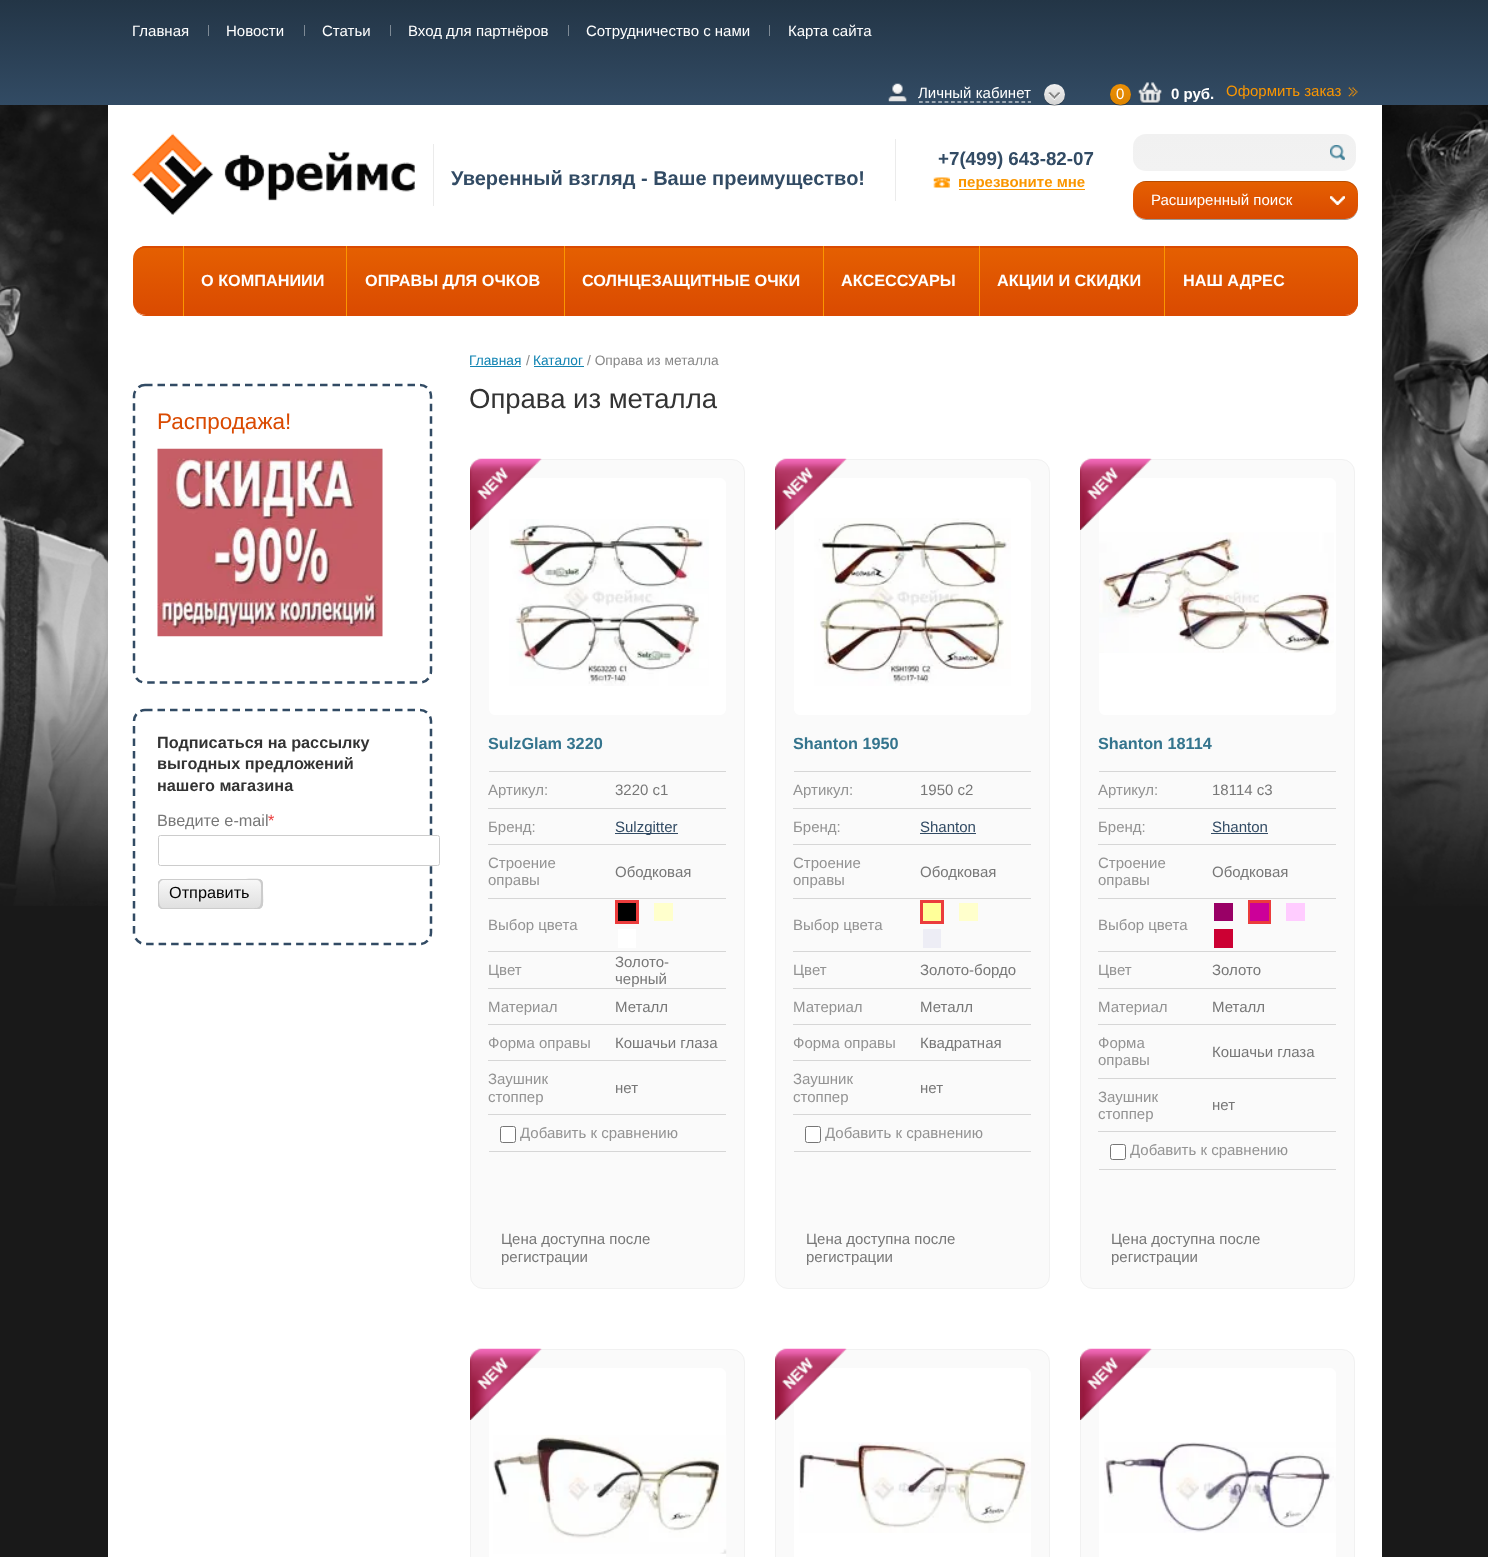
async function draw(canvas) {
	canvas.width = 1488;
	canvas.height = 1557;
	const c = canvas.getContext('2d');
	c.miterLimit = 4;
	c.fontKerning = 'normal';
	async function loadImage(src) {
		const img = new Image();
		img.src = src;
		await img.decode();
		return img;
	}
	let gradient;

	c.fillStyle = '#191919';
	c.fillRect(0, 0, 1488, 1557);
	c.drawImage(await loadImage('img1.png'), 0, 105, 1488, 801);
	c.fillStyle = '#fff';
	c.fillRect(108, 105, 1274, 1452);
	gradient = c.createLinearGradient(744, 0, 744, 105);
	gradient.addColorStop(0, '#233546');
	gradient.addColorStop(1, '#324b64');
	c.fillStyle = gradient;
	c.fillRect(0, 0, 1488, 105);
	c.font = '15px Liberation Sans';
	c.fillStyle = '#fff';
	c.fillText('Главная', 132, 36);
	c.fillStyle = '#ffffff66';
	c.fillRect(208, 25, 1, 11);
	c.fillStyle = '#fff';
	c.fillText('Новости', 226, 36);
	c.fillStyle = '#ffffff66';
	c.fillRect(304, 25, 1, 11);
	c.fillStyle = '#fff';
	c.fillText('Статьи', 322, 36);
	c.fillStyle = '#ffffff66';
	c.fillRect(390, 25, 1, 11);
	c.fillStyle = '#fff';
	c.fillText('Вход для партнёров', 408, 36);
	c.fillStyle = '#ffffff66';
	c.fillRect(568, 25, 1, 11);
	c.fillStyle = '#fff';
	c.fillText('Сотрудничество с нами', 586, 36);
	c.fillStyle = '#ffffff66';
	c.fillRect(769, 25, 1, 11);
	c.fillStyle = '#fff';
	c.fillText('Карта сайта', 788, 36);
	c.drawImage(await loadImage('img2.png'), 888, 83, 19, 19);
	c.fillText('Личный кабинет', 918, 98);
	c.beginPath();
	c.moveTo(919, 102);
	c.lineTo(1031, 102);
	c.strokeStyle = '#fff';
	c.lineWidth = 1.2;
	c.setLineDash([3.75, 2.65]);
	c.stroke();
	c.fillStyle = '#0000004d';
	c.filter = 'blur(0.5px)';
	c.beginPath();
	c.roundRect(1044, 85, 21, 21, 10.5);
	c.fill();
	c.filter = 'none';
	gradient = c.createLinearGradient(1054, 84, 1054, 105);
	gradient.addColorStop(0, '#f1f1f1');
	gradient.addColorStop(1, '#d4d4d4');
	c.fillStyle = gradient;
	c.beginPath();
	c.arc(1054.5, 94.5, 10.5, 0, 2 * Math.PI);
	c.fill();
	c.drawImage(await loadImage('img3.png'), 1048, 92, 12, 8);
	c.fillStyle = '#0000004d';
	c.filter = 'blur(0.5px)';
	c.beginPath();
	c.roundRect(1110, 85, 21, 21, 10.5);
	c.fill();
	c.filter = 'none';
	gradient = c.createLinearGradient(1121, 84, 1121, 105);
	gradient.addColorStop(0, '#eb8f05');
	gradient.addColorStop(1, '#dd8400');
	c.fillStyle = gradient;
	c.beginPath();
	c.arc(1120.5, 94.5, 10.5, 0, 2 * Math.PI);
	c.fill();
	c.fillStyle = '#fff';
	c.fillText('0', 1116, 99);
	c.drawImage(await loadImage('img4.png'), 1138, 82, 24, 23);
	c.font = 'bold 15px Liberation Sans';
	c.fillText('0 руб.', 1171, 99);
	c.drawImage(await loadImage('img5.png'), 1348, 87, 10, 10);
	c.font = '15px Liberation Sans';
	c.fillStyle = '#fa9600';
	c.fillText('Оформить заказ', 1226, 96);
	c.drawImage(await loadImage('img6.png'), 132, 133, 283, 82);
	c.fillStyle = '#ebebeb';
	c.fillRect(433, 144, 1, 62);
	c.font = 'bold 20px Liberation Sans';
	c.fillStyle = '#324b64';
	c.fillText('Уверенный взгляд - Ваше преимущество!', 451, 185);
	c.fillStyle = '#ebebeb';
	c.fillRect(895, 139, 1, 62);
	c.font = 'bold 18.75px Liberation Sans';
	c.fillStyle = '#324b64';
	c.fillText('+7(499) 643-82-07', 938, 165);
	c.drawImage(await loadImage('img7.png'), 933, 177, 17, 11);
	c.fillStyle = '#fa9600';
	c.fillRect(959, 189, 126, 1);
	c.font = 'bold 15px Liberation Sans';
	c.fillText('перезвоните мне', 958, 187);
	gradient = c.createLinearGradient(1244, 134, 1244, 171);
	gradient.addColorStop(0, '#f1f1f1');
	gradient.addColorStop(1, '#f2f2f2');
	c.fillStyle = gradient;
	c.beginPath();
	c.roundRect(1133, 134, 223, 37, 13);
	c.fill();
	c.drawImage(await loadImage('img8.png'), 1330, 145, 15, 15);
	c.fillStyle = '#999';
	c.beginPath();
	c.moveTo(1134, 213);
	c.bezierCurveTo(1137, 217, 1141, 220, 1146, 220);
	c.lineTo(1345, 220);
	c.bezierCurveTo(1352, 220, 1358, 214, 1358, 207);
	c.lineTo(1358, 196);
	c.lineTo(1357, 192);
	c.lineTo(1358, 206);
	c.bezierCurveTo(1358, 213, 1352, 219, 1345, 219);
	c.lineTo(1145, 219);
	c.bezierCurveTo(1141, 219, 1137, 216, 1134, 213);
	c.closePath();
	c.fill();
	gradient = c.createLinearGradient(1245, 181, 1245, 219);
	gradient.addColorStop(0, '#e56001');
	gradient.addColorStop(1, '#da4a01');
	c.fillStyle = gradient;
	c.beginPath();
	c.roundRect(1133, 181, 225, 38, 13);
	c.fill();
	c.fillStyle = '#00000033';
	c.beginPath();
	c.moveTo(1145, 182);
	c.lineTo(1345, 182);
	c.bezierCurveTo(1352, 182, 1358, 188, 1358, 195);
	c.lineTo(1358, 194);
	c.bezierCurveTo(1358, 187, 1352, 181, 1345, 181);
	c.lineTo(1146, 181);
	c.bezierCurveTo(1142, 181, 1138, 183, 1136, 186);
	c.bezierCurveTo(1138, 184, 1141, 182, 1145, 182);
	c.closePath();
	c.fill();
	c.font = '15px Liberation Sans';
	c.fillStyle = '#fff';
	c.fillText('Расширенный поиск', 1151, 205);
	c.drawImage(await loadImage('img9.png'), 1330, 196, 15, 9);
	c.fillStyle = '#da4a01';
	c.beginPath();
	c.moveTo(135, 310);
	c.bezierCurveTo(138, 314, 142, 316, 146, 316);
	c.lineTo(1345, 316);
	c.bezierCurveTo(1352, 316, 1358, 310, 1358, 303);
	c.lineTo(1358, 261);
	c.lineTo(1357, 257);
	c.lineTo(1357, 305);
	c.bezierCurveTo(1356, 311, 1351, 315, 1345, 315);
	c.lineTo(145, 315);
	c.bezierCurveTo(141, 315, 138, 313, 135, 310);
	c.closePath();
	c.fill();
	gradient = c.createLinearGradient(745, 246, 745, 315);
	gradient.addColorStop(0, '#e56001');
	gradient.addColorStop(1, '#da4a01');
	c.fillStyle = gradient;
	c.beginPath();
	c.roundRect(133, 246, 1225, 69, 13);
	c.fill();
	c.fillStyle = '#da4a01fc';
	c.beginPath();
	c.moveTo(145, 248);
	c.lineTo(1345, 248);
	c.bezierCurveTo(1352, 248, 1358, 253, 1358, 260);
	c.lineTo(1358, 259);
	c.bezierCurveTo(1358, 252, 1352, 246, 1345, 246);
	c.lineTo(146, 246);
	c.bezierCurveTo(141, 246, 137, 249, 135, 253);
	c.bezierCurveTo(137, 250, 141, 248, 145, 248);
	c.closePath();
	c.fill();
	c.fillStyle = '#fa9600';
	c.fillRect(183, 246, 1, 70);
	c.font = 'bold 16.25px Liberation Sans';
	c.fillStyle = '#fff';
	c.fillText('О КОМПАНИИИ', 201, 286);
	c.fillStyle = '#fa9600';
	c.fillRect(346, 246, 1, 70);
	c.fillStyle = '#fff';
	c.fillText('ОПРАВЫ ДЛЯ ОЧКОВ', 365, 286);
	c.fillStyle = '#fa9600';
	c.fillRect(564, 246, 1, 70);
	c.fillStyle = '#fff';
	c.fillText('СОЛНЦЕЗАЩИТНЫЕ ОЧКИ', 582, 286);
	c.fillStyle = '#fa9600';
	c.fillRect(823, 246, 1, 70);
	c.fillStyle = '#fff';
	c.fillText('АКСЕССУАРЫ', 841, 286);
	c.fillStyle = '#fa9600';
	c.fillRect(979, 246, 1, 70);
	c.fillStyle = '#fff';
	c.fillText('АКЦИИ И СКИДКИ', 997, 286);
	c.fillStyle = '#fa9600';
	c.fillRect(1164, 246, 1, 70);
	c.fillStyle = '#fff';
	c.fillText('НАШ АДРЕС', 1183, 286);
	c.beginPath();
	c.moveTo(145, 385);
	c.lineTo(420, 385);
	c.bezierCurveTo(426, 385, 431, 390, 431, 396);
	c.lineTo(431, 671);
	c.bezierCurveTo(431, 677.5, 426, 682.5, 420, 682.5);
	c.lineTo(145, 682.5);
	c.bezierCurveTo(139, 682.5, 134, 677.5, 134, 671);
	c.lineTo(134, 396);
	c.bezierCurveTo(134, 390, 139, 385, 145, 385);
	c.closePath();
	c.strokeStyle = '#324b64';
	c.lineWidth = 2.5;
	c.setLineDash([7.5, 5]);
	c.stroke();
	c.font = '22.5px Liberation Sans';
	c.fillStyle = '#da4a01';
	c.fillText('Распродажа!', 157, 429);
	c.drawImage(await loadImage('img10.png'), 157, 448, 226, 189);
	c.beginPath();
	c.moveTo(145, 710);
	c.lineTo(420, 710);
	c.bezierCurveTo(426, 710, 431, 715, 431, 721);
	c.lineTo(431, 932.5);
	c.bezierCurveTo(431, 938.5, 426, 944, 420, 944);
	c.lineTo(145, 944);
	c.bezierCurveTo(139, 944, 134, 938.5, 134, 932.5);
	c.lineTo(134, 721);
	c.bezierCurveTo(134, 715, 139, 710, 145, 710);
	c.closePath();
	c.stroke();
	c.font = 'bold 16.25px Liberation Sans';
	c.fillStyle = '#333';
	for (const [text, x, y] of [
		['Подписаться на рассылку', 157, 748],
		['выгодных предложений', 157, 769],
		['нашего магазина', 157, 791],
	]) {
		c.fillText(text, x, y);
	}
	c.font = '16.25px Liberation Sans';
	c.fillStyle = '#777';
	c.fillText('Введите e-mail', 157, 826);
	c.fillStyle = '#eb3c3c';
	c.fillText('*', 268, 826);
	c.fillStyle = '#fff';
	c.beginPath();
	c.roundRect(158.5, 835.5, 281, 30, 2);
	c.fill();
	c.strokeStyle = '#ccc';
	c.lineWidth = 1;
	c.setLineDash([]);
	c.stroke();
	gradient = c.createLinearGradient(210, 879, 210, 909);
	gradient.addColorStop(0, '#f8f8f8');
	gradient.addColorStop(1, '#dfdfdf');
	c.fillStyle = gradient;
	c.beginPath();
	c.roundRect(158, 879, 105, 30, 5);
	c.fill();
	c.fillStyle = '#ccc';
	c.beginPath();
	c.moveTo(159, 881);
	c.bezierCurveTo(158, 882, 158, 883, 158, 884);
	c.lineTo(158, 904);
	c.bezierCurveTo(158, 907, 160, 909, 163, 909);
	c.lineTo(258, 909);
	c.bezierCurveTo(260, 909, 262, 908, 262, 906);
	c.bezierCurveTo(259, 911, 245, 908, 243, 908);
	c.lineTo(180, 908);
	c.bezierCurveTo(161, 908, 159, 912, 159, 895);
	c.closePath();
	c.fill();
	c.beginPath();
	c.moveTo(161, 880);
	c.lineTo(256, 880);
	c.bezierCurveTo(259, 880, 261, 882, 261, 885);
	c.lineTo(261, 905);
	c.bezierCurveTo(261, 907, 260, 908, 259, 909);
	c.bezierCurveTo(264, 907, 263, 901, 263, 897);
	c.bezierCurveTo(263, 876, 266, 879, 242, 879);
	c.lineTo(163, 879);
	c.lineTo(160, 880);
	c.closePath();
	c.fill();
	c.beginPath();
	c.moveTo(160, 908);
	c.lineTo(163, 909);
	c.lineTo(242, 909);
	c.bezierCurveTo(267, 909, 263, 911, 263, 887);
	c.bezierCurveTo(263, 884, 263, 881, 260, 879);
	c.bezierCurveTo(262, 882, 261, 889, 261, 892);
	c.bezierCurveTo(261, 911, 262, 908, 240, 908);
	c.closePath();
	c.fill();
	c.beginPath();
	c.moveTo(164, 880);
	c.lineTo(259, 880);
	c.lineTo(262, 881);
	c.bezierCurveTo(261, 880, 259, 879, 258, 879);
	c.lineTo(163, 879);
	c.bezierCurveTo(160, 879, 158, 881, 158, 884);
	c.lineTo(158, 904);
	c.bezierCurveTo(158, 905, 159, 907, 160, 908);
	c.bezierCurveTo(158, 905, 159, 898, 159, 895);
	c.bezierCurveTo(159, 891, 157, 880, 164, 880);
	c.closePath();
	c.fill();
	c.fillStyle = '#040404';
	c.fillText('Отправить', 169, 898);
	c.font = '13.75px Liberation Sans';
	c.fillStyle = '#1284b3';
	c.fillText('Главная', 469, 365);
	c.fillRect(470, 366, 51, 1);
	c.fillStyle = '#888';
	c.fillText('/', 526, 365);
	c.fillStyle = '#1284b3';
	c.fillText('Каталог', 533, 365);
	c.fillRect(534, 366, 50, 1);
	c.fillStyle = '#888';
	c.fillText('/ Оправа из металла', 587, 365);
	c.font = '27.5px Liberation Sans';
	c.fillStyle = '#333';
	c.fillText('Оправа из металла', 469, 408);
	c.fillStyle = '#fafafa';
	c.beginPath();
	c.roundRect(470.5, 459.5, 274, 829, 12.5);
	c.fill();
	c.strokeStyle = '#f1f1f1';
	c.stroke();
	c.fillStyle = '#fff';
	c.beginPath();
	c.roundRect(489, 478, 237, 237, 6);
	c.fill();
	c.drawImage(await loadImage('img12.png'), 509, 519, 200, 167);
	c.drawImage(await loadImage('img11.png'), 470, 458, 72, 72);
	c.font = 'bold 16.25px Liberation Sans';
	c.fillStyle = '#34748d';
	c.fillText('SulzGlam 3220', 488, 749);
	c.fillStyle = '#d6d6d6';
	c.fillRect(489, 771, 237, 1);
	c.fillRect(488, 808, 238, 1);
	c.font = '15px Liberation Sans';
	c.fillStyle = '#939393';
	c.fillText('Артикул:', 488, 795);
	c.fillStyle = '#777';
	c.fillText('3220 с1', 615, 795);
	c.fillStyle = '#d6d6d6';
	c.fillRect(488, 844, 238, 1);
	c.fillStyle = '#939393';
	c.fillText('Бренд:', 488, 832);
	c.fillStyle = '#324b64';
	c.fillRect(615, 833, 63, 1);
	c.fillText('Sulzgitter', 615, 832);
	c.fillStyle = '#d6d6d6';
	c.fillRect(488, 898, 238, 1);
	c.fillStyle = '#939393';
	c.fillText('Строение', 488, 868);
	c.fillText('оправы', 488, 885);
	c.fillStyle = '#777';
	c.fillText('Ободковая', 615, 877);
	c.fillStyle = '#d6d6d6';
	c.fillRect(488, 951, 238, 1);
	c.fillStyle = '#939393';
	c.fillText('Выбор цвета', 488, 930);
	c.strokeStyle = '#eb3c3c';
	c.lineWidth = 3;
	c.strokeRect(616.5, 901.5, 21, 21);
	for (const [x, y, w, h, color] of [
		[618, 903, 18, 18, '#000'],
		[654, 903, 19, 18, '#ffc'],
		[618, 929, 18, 19, '#fff'],
		[488, 988, 238, 1, '#d6d6d6'],
	]) {
		c.fillStyle = color;
		c.fillRect(x, y, w, h);
	}
	c.fillStyle = '#939393';
	c.fillText('Цвет', 488, 975);
	c.fillStyle = '#777';
	c.fillText('Золото-', 615, 967);
	c.fillText('черный', 615, 984);
	c.fillStyle = '#d6d6d6';
	c.fillRect(488, 1024, 238, 1);
	c.fillStyle = '#939393';
	c.fillText('Материал', 488, 1012);
	c.fillStyle = '#777';
	c.fillText('Металл', 615, 1012);
	c.fillStyle = '#d6d6d6';
	c.fillRect(488, 1060, 238, 1);
	c.fillStyle = '#939393';
	c.fillText('Форма оправы', 488, 1048);
	c.fillStyle = '#777';
	c.fillText('Кошачьи глаза', 615, 1048);
	c.fillStyle = '#d6d6d6';
	c.fillRect(488, 1114, 238, 1);
	c.fillStyle = '#939393';
	c.fillText('Заушник', 488, 1084);
	c.fillText('стоппер', 488, 1102);
	c.fillStyle = '#777';
	c.fillText('нет', 615, 1093);
	c.fillStyle = '#d6d6d6';
	c.fillRect(489, 1151, 237, 1);
	c.fillStyle = '#fff';
	c.beginPath();
	c.roundRect(500.5, 1126.5, 15, 16, 2);
	c.fill();
	c.strokeStyle = '#767676';
	c.lineWidth = 1;
	c.stroke();
	c.fillStyle = '#939393';
	c.fillText('Добавить к сравнению', 520, 1138);
	c.fillStyle = '#777';
	c.fillText('Цена доступна после', 501, 1244);
	c.fillText('регистрации', 501, 1262);
	c.fillStyle = '#fafafa';
	c.beginPath();
	c.roundRect(775.5, 459.5, 274, 829, 12.5);
	c.fill();
	c.strokeStyle = '#f1f1f1';
	c.stroke();
	c.fillStyle = '#fff';
	c.beginPath();
	c.roundRect(794, 478, 237, 237, 6);
	c.fill();
	c.drawImage(await loadImage('img14.png'), 814, 518, 197, 168);
	c.drawImage(await loadImage('img13.png'), 775, 458, 72, 72);
	c.font = 'bold 16.25px Liberation Sans';
	c.fillStyle = '#34748d';
	c.fillText('Shanton 1950', 793, 749);
	c.fillStyle = '#d6d6d6';
	c.fillRect(794, 771, 237, 1);
	c.fillRect(793, 808, 238, 1);
	c.font = '15px Liberation Sans';
	c.fillStyle = '#939393';
	c.fillText('Артикул:', 793, 795);
	c.fillStyle = '#777';
	c.fillText('1950 c2', 920, 795);
	c.fillStyle = '#d6d6d6';
	c.fillRect(793, 844, 238, 1);
	c.fillStyle = '#939393';
	c.fillText('Бренд:', 793, 832);
	c.fillStyle = '#324b64';
	c.fillText('Shanton', 920, 832);
	c.fillRect(920, 833, 56, 1);
	c.fillStyle = '#d6d6d6';
	c.fillRect(793, 898, 238, 1);
	c.fillStyle = '#939393';
	c.fillText('Строение', 793, 868);
	c.fillText('оправы', 793, 885);
	c.fillStyle = '#777';
	c.fillText('Ободковая', 920, 877);
	c.fillStyle = '#d6d6d6';
	c.fillRect(793, 951, 238, 1);
	c.fillStyle = '#939393';
	c.fillText('Выбор цвета', 793, 930);
	c.strokeStyle = '#eb3c3c';
	c.lineWidth = 3;
	c.strokeRect(921.5, 901.5, 21, 21);
	for (const [x, y, w, h, color] of [
		[923, 903, 18, 18, '#ff9'],
		[959, 903, 19, 18, '#ffc'],
		[923, 929, 18, 19, '#ededf5'],
		[793, 988, 238, 1, '#d6d6d6'],
	]) {
		c.fillStyle = color;
		c.fillRect(x, y, w, h);
	}
	c.fillStyle = '#939393';
	c.fillText('Цвет', 793, 975);
	c.fillStyle = '#777';
	c.fillText('Золото-бордо', 920, 975);
	c.fillStyle = '#d6d6d6';
	c.fillRect(793, 1024, 238, 1);
	c.fillStyle = '#939393';
	c.fillText('Материал', 793, 1012);
	c.fillStyle = '#777';
	c.fillText('Металл', 920, 1012);
	c.fillStyle = '#d6d6d6';
	c.fillRect(793, 1060, 238, 1);
	c.fillStyle = '#939393';
	c.fillText('Форма оправы', 793, 1048);
	c.fillStyle = '#777';
	c.fillText('Квадратная', 920, 1048);
	c.fillStyle = '#d6d6d6';
	c.fillRect(793, 1114, 238, 1);
	c.fillStyle = '#939393';
	c.fillText('Заушник', 793, 1084);
	c.fillText('стоппер', 793, 1102);
	c.fillStyle = '#777';
	c.fillText('нет', 920, 1093);
	c.fillStyle = '#d6d6d6';
	c.fillRect(794, 1151, 237, 1);
	c.fillStyle = '#fff';
	c.beginPath();
	c.roundRect(805.5, 1126.5, 15, 16, 2);
	c.fill();
	c.strokeStyle = '#767676';
	c.lineWidth = 1;
	c.stroke();
	c.fillStyle = '#939393';
	c.fillText('Добавить к сравнению', 825, 1138);
	c.fillStyle = '#777';
	c.fillText('Цена доступна после', 806, 1244);
	c.fillText('регистрации', 806, 1262);
	c.fillStyle = '#fafafa';
	c.beginPath();
	c.roundRect(1080.5, 459.5, 274, 829, 12.5);
	c.fill();
	c.strokeStyle = '#f1f1f1';
	c.stroke();
	c.fillStyle = '#fff';
	c.beginPath();
	c.roundRect(1099, 478, 237, 237, 6);
	c.fill();
	c.drawImage(await loadImage('img15.png'), 1080, 458, 72, 72);
	c.drawImage(await loadImage('img16.png'), 1099, 532, 235, 121);
	c.font = 'bold 16.25px Liberation Sans';
	c.fillStyle = '#34748d';
	c.fillText('Shanton 18114', 1098, 749);
	c.fillStyle = '#d6d6d6';
	c.fillRect(1099, 771, 237, 1);
	c.fillRect(1098, 808, 238, 1);
	c.font = '15px Liberation Sans';
	c.fillStyle = '#939393';
	c.fillText('Артикул:', 1098, 795);
	c.fillStyle = '#777';
	c.fillText('18114 c3', 1212, 795);
	c.fillStyle = '#d6d6d6';
	c.fillRect(1098, 844, 238, 1);
	c.fillStyle = '#939393';
	c.fillText('Бренд:', 1098, 832);
	c.fillStyle = '#324b64';
	c.fillText('Shanton', 1212, 832);
	c.fillRect(1211, 833, 57, 1);
	c.fillStyle = '#d6d6d6';
	c.fillRect(1098, 898, 238, 1);
	c.fillStyle = '#939393';
	c.fillText('Строение', 1098, 868);
	c.fillText('оправы', 1098, 885);
	c.fillStyle = '#777';
	c.fillText('Ободковая', 1212, 877);
	c.fillStyle = '#d6d6d6';
	c.fillRect(1098, 951, 238, 1);
	c.fillStyle = '#939393';
	c.fillText('Выбор цвета', 1098, 930);
	c.fillStyle = '#906';
	c.fillRect(1214, 903, 19, 18);
	c.strokeStyle = '#eb3c3c';
	c.lineWidth = 3;
	c.strokeRect(1249.5, 901.5, 20, 21);
	for (const [x, y, w, h, color] of [
		[1250, 903, 19, 18, '#c09'],
		[1286, 903, 19, 18, '#fcf'],
		[1214, 929, 19, 19, '#c03'],
		[1098, 988, 238, 1, '#d6d6d6'],
	]) {
		c.fillStyle = color;
		c.fillRect(x, y, w, h);
	}
	c.fillStyle = '#939393';
	c.fillText('Цвет', 1098, 975);
	c.fillStyle = '#777';
	c.fillText('Золото', 1212, 975);
	c.fillStyle = '#d6d6d6';
	c.fillRect(1098, 1024, 238, 1);
	c.fillStyle = '#939393';
	c.fillText('Материал', 1098, 1012);
	c.fillStyle = '#777';
	c.fillText('Металл', 1212, 1012);
	c.fillStyle = '#d6d6d6';
	c.fillRect(1098, 1078, 238, 1);
	c.fillStyle = '#939393';
	c.fillText('Форма', 1098, 1048);
	c.fillText('оправы', 1098, 1065);
	c.fillStyle = '#777';
	c.fillText('Кошачьи глаза', 1212, 1057);
	c.fillStyle = '#d6d6d6';
	c.fillRect(1098, 1131, 238, 1);
	c.fillStyle = '#939393';
	c.fillText('Заушник', 1098, 1102);
	c.fillText('стоппер', 1098, 1119);
	c.fillStyle = '#777';
	c.fillText('нет', 1212, 1110);
	c.fillStyle = '#d6d6d6';
	c.fillRect(1099, 1169, 237, 1);
	c.fillStyle = '#fff';
	c.beginPath();
	c.roundRect(1110.5, 1144.5, 15, 15, 2);
	c.fill();
	c.strokeStyle = '#767676';
	c.lineWidth = 1;
	c.stroke();
	c.fillStyle = '#939393';
	c.fillText('Добавить к сравнению', 1130, 1155);
	c.fillStyle = '#777';
	c.fillText('Цена доступна после', 1111, 1244);
	c.fillText('регистрации', 1111, 1262);
	c.fillStyle = '#fafafa';
	c.beginPath();
	c.roundRect(470.5, 1349.5, 274, 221, 12.5);
	c.fill();
	c.strokeStyle = '#f1f1f1';
	c.stroke();
	c.fillStyle = '#fff';
	c.beginPath();
	c.roundRect(489, 1368, 237, 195, 6);
	c.fill();
	c.drawImage(await loadImage('img17.png'), 470, 1348, 72, 72);
	c.drawImage(await loadImage('img18.png'), 493, 1435, 234, 119);
	c.fillStyle = '#fafafa';
	c.beginPath();
	c.roundRect(775.5, 1349.5, 274, 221, 12.5);
	c.fill();
	c.stroke();
	c.fillStyle = '#fff';
	c.beginPath();
	c.roundRect(794, 1368, 237, 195, 6);
	c.fill();
	c.drawImage(await loadImage('img19.png'), 775, 1348, 72, 72);
	c.drawImage(await loadImage('img20.png'), 799, 1442, 232, 91);
	c.fillStyle = '#fafafa';
	c.beginPath();
	c.roundRect(1080.5, 1349.5, 274, 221, 12.5);
	c.fill();
	c.stroke();
	c.fillStyle = '#fff';
	c.beginPath();
	c.roundRect(1099, 1368, 237, 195, 6);
	c.fill();
	c.drawImage(await loadImage('img15.png'), 1080, 1348, 72, 72);
	c.drawImage(await loadImage('img21.png'), 1104, 1442, 232, 91);
}

draw(document.querySelector('canvas'));
